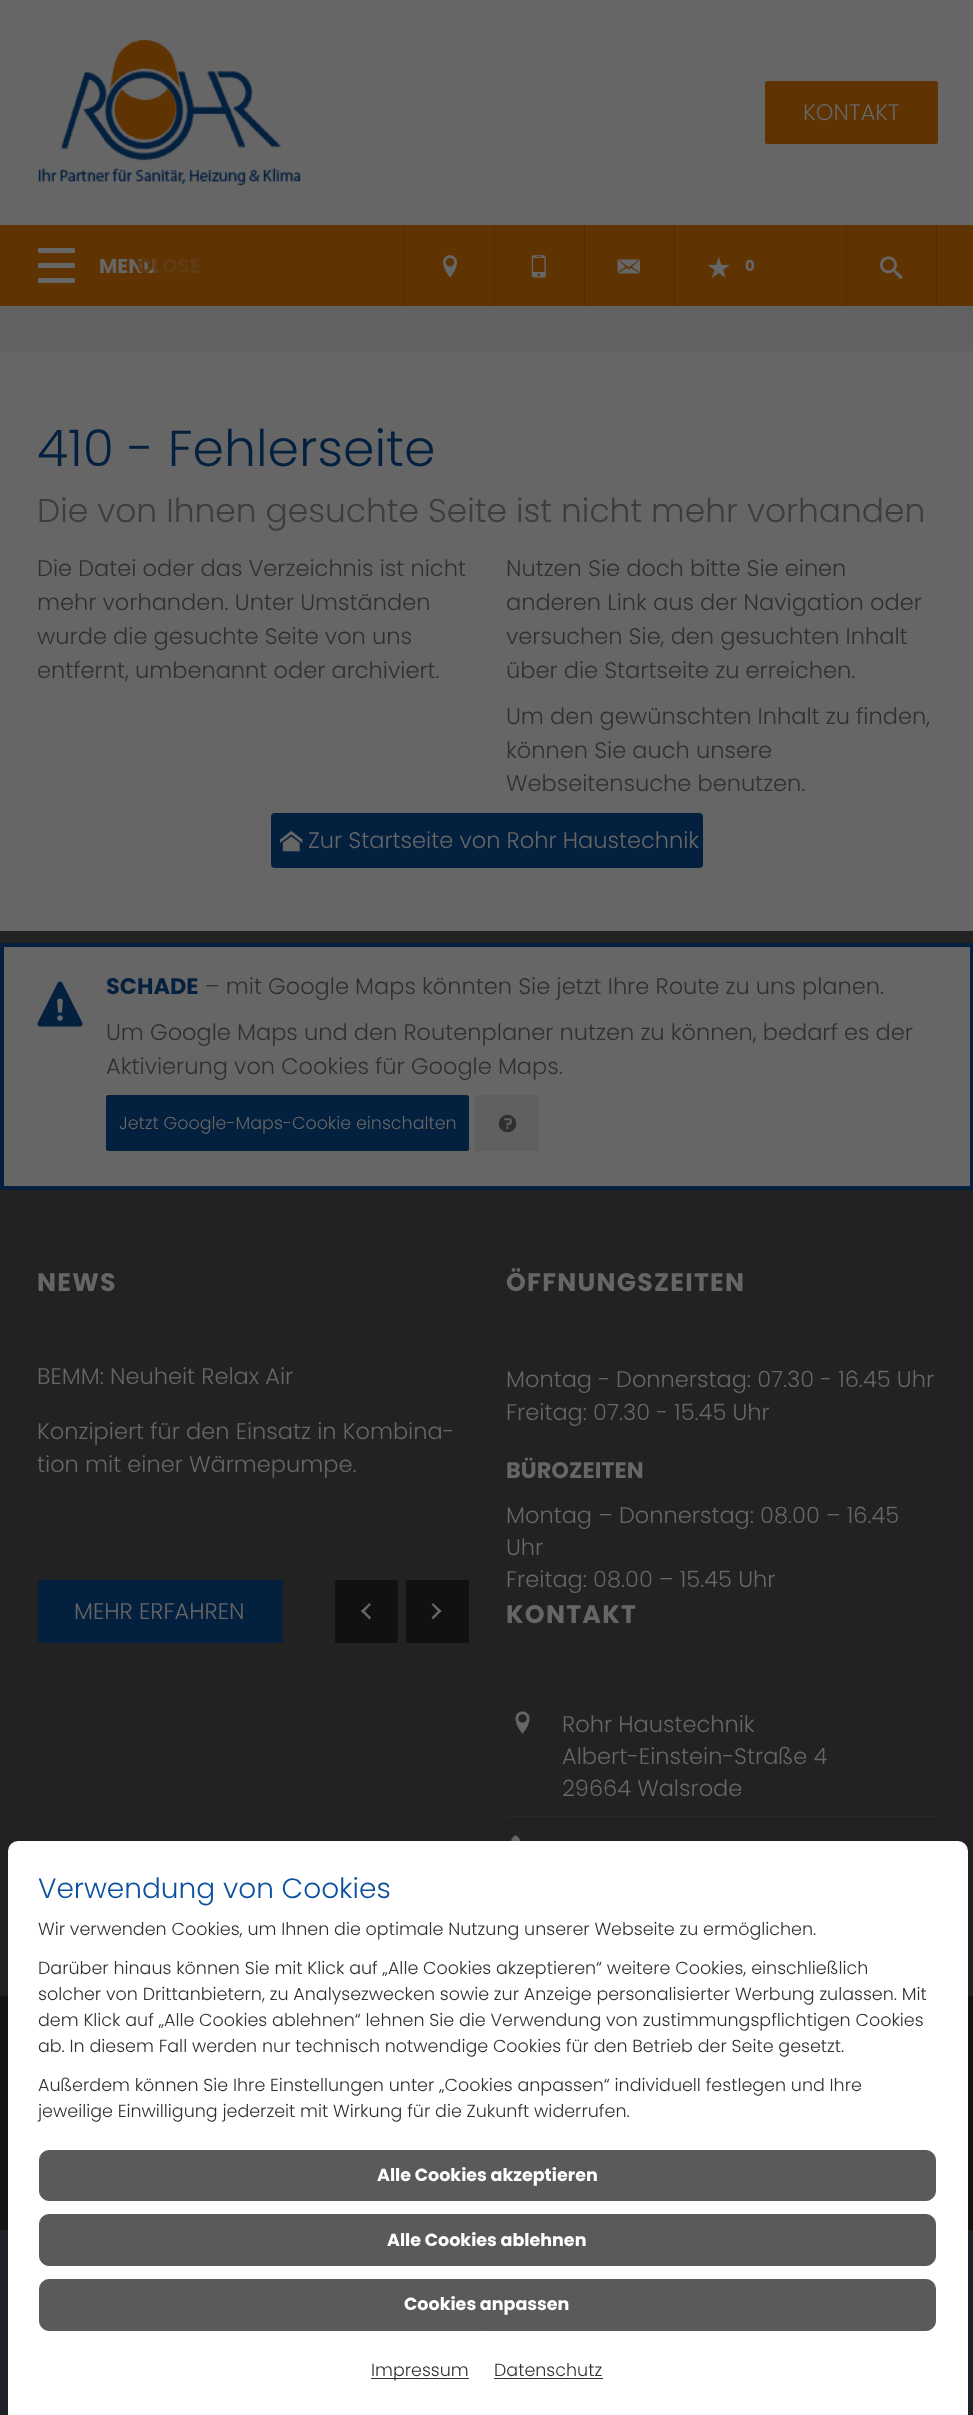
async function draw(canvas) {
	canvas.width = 973;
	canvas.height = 2415;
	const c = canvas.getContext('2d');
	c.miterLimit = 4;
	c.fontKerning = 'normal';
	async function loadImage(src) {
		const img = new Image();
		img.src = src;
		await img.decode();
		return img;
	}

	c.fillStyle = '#1f2328';
	c.fillRect(0, 0, 973, 2415);
	c.fillStyle = '#666';
	c.fillRect(0, 0, 973, 225);
	c.drawImage(await loadImage('img1.png'), 38, 40, 263, 146);
	c.fillStyle = '#5f3302';
	c.beginPath();
	c.roundRect(765, 81, 173, 63, 2.5);
	c.fill();
	c.font = '300 22.5px Poppins';
	c.fillStyle = '#666';
	c.fillText('KONTAKT', 803, 120);
	c.fillStyle = '#5f3302';
	c.fillRect(0, 225, 973, 81);
	c.fillStyle = '#666';
	c.beginPath();
	c.roundRect(38, 248, 37, 5, 1);
	c.fill();
	c.beginPath();
	c.roundRect(38, 263, 37, 5, 1);
	c.fill();
	c.beginPath();
	c.roundRect(38, 278, 37, 5, 1);
	c.fill();
	c.font = 'bold 20px Poppins';
	c.fillText('MENU', 99, 273);
	c.fillStyle = '#603c15';
	c.fillText('CLOSE', 137, 273);
	c.fillStyle = '#512b02';
	c.fillRect(404, 225, 1, 81);
	c.drawImage(await loadImage('img2.png'), 443, 255, 14, 23);
	c.fillRect(494, 225, 1, 81);
	c.drawImage(await loadImage('img3.png'), 531, 255, 15, 23);
	c.fillRect(584, 225, 1, 81);
	c.drawImage(await loadImage('img4.png'), 617, 259, 23, 15);
	c.fillRect(674, 225, 1, 81);
	c.drawImage(await loadImage('img5.png'), 707, 256, 23, 22);
	c.font = 'bold 15px Poppins';
	c.fillStyle = '#666';
	c.fillText('0', 745, 271);
	c.fillStyle = '#512b02';
	c.fillRect(936, 225, 1, 81);
	c.fillRect(846, 225, 1, 81);
	c.drawImage(await loadImage('img6.png'), 880, 256, 23, 23);
	c.fillStyle = '#626262';
	c.fillRect(0, 306, 973, 45);
	c.fillStyle = '#666';
	c.fillRect(0, 351, 973, 580);
	c.font = '300 50.5px Poppins';
	c.fillStyle = '#04203f';
	c.fillText('410 - Fehlerseite', 37, 466);
	c.font = '300 32.9px Poppins';
	c.fillStyle = '#3d3d3d';
	c.fillText('Die von Ihnen gesuchte Seite ist nicht mehr vorhanden', 37, 522);
	c.font = '300 22.5px Poppins';
	c.fillStyle = '#303030';
	for (const [text, x, y] of [
		['Die Datei oder das Verzeichnis ist nicht', 37, 576],
		['mehr vorhanden. Unter Umständen', 37, 610],
		['wurde die gesuchte Seite von uns', 37, 644],
		['entfernt, umbenannt oder archiviert.', 37, 678],
		['Nutzen Sie doch bitte Sie einen', 506, 576],
		['anderen Link aus der Navigation oder', 506, 610],
		['versuchen Sie, den gesuchten Inhalt', 506, 644],
		['über die Startseite zu erreichen.', 506, 678],
		['Um den gewünschten Inhalt zu finden,', 506, 724],
		['können Sie auch unsere', 506, 758],
		['Webseitensuche benutzen.', 506, 791],
	]) {
		c.fillText(text, x, y);
	}
	c.fillStyle = '#04203f';
	c.beginPath();
	c.roundRect(271, 813, 432, 55, 4);
	c.fill();
	c.drawImage(await loadImage('img7.png'), 280, 830, 23, 22);
	c.fillStyle = '#666';
	c.fillText('Zur Startseite von Rohr Haustechnik', 308, 848);
	c.fillStyle = '#222';
	c.fillRect(0, 931, 973, 1065);
	c.fillStyle = '#666';
	c.beginPath();
	c.roundRect(2, 945, 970, 243, 0.5);
	c.fill();
	c.strokeStyle = '#04203f';
	c.lineWidth = 4;
	c.stroke();
	c.drawImage(await loadImage('img8.png'), 37, 981, 46, 46);
	c.font = 'bold 22.5px Poppins';
	c.fillStyle = '#04203f';
	c.fillText('SCHADE', 106, 994);
	c.font = '300 22.5px Poppins';
	c.fillStyle = '#303030';
	for (const [text, x, y] of [
		['– mit Google Maps könnten Sie jetzt Ihre Route zu uns planen.', 205, 994],
		['Um Google Maps und den Routenplaner nutzen zu können, bedarf es der', 106, 1040],
		['Aktivierung von Cookies für Google Maps.', 106, 1074],
	]) {
		c.fillText(text, x, y);
	}
	c.fillStyle = '#04203f';
	c.beginPath();
	c.roundRect(106, 1095, 363, 56, 2.5);
	c.fill();
	c.font = '300 17.5px Poppins';
	c.fillStyle = '#666';
	c.fillText('Jetzt Google-Maps-Cookie einschalten', 119, 1129);
	c.fillStyle = '#606060';
	c.beginPath();
	c.roundRect(475, 1095, 64, 56, 2.5);
	c.fill();
	c.drawImage(await loadImage('img9.png'), 498, 1114, 19, 19);
	c.letterSpacing = '1.25px';
	c.font = 'bold 25.25px Poppins';
	c.fillStyle = '#666';
	c.fillText('NEWS', 37, 1291);
	c.letterSpacing = '0px';
	c.font = '300 22.5px Poppins';
	for (const [text, x, y] of [
		['BEMM: Neuheit Relax Air', 37, 1384],
		['Konzipiert für den Einsatz in Kombina-', 37, 1439],
		['tion mit einer Wärmepumpe.', 37, 1472],
	]) {
		c.fillText(text, x, y);
	}
	c.fillStyle = '#04203f';
	c.beginPath();
	c.roundRect(38, 1580, 245, 63, 2.5);
	c.fill();
	c.fillStyle = '#666';
	c.fillText('MEHR ERFAHREN', 74, 1619);
	c.fillStyle = '#111';
	c.beginPath();
	c.roundRect(335, 1580, 63, 63, 2.5);
	c.fill();
	c.fillStyle = '#666';
	c.beginPath();
	c.moveTo(363, 1609.5);
	c.lineTo(371, 1617.5);
	c.lineTo(369.5, 1619.5);
	c.lineTo(361, 1611);
	c.closePath();
	c.fill();
	c.beginPath();
	c.moveTo(369.5, 1603);
	c.lineTo(371, 1604.5);
	c.lineTo(363, 1613);
	c.lineTo(361, 1611);
	c.closePath();
	c.fill();
	c.fillStyle = '#111';
	c.beginPath();
	c.roundRect(406, 1580, 63, 63, 2.5);
	c.fill();
	c.fillStyle = '#666';
	c.beginPath();
	c.moveTo(433, 1603);
	c.lineTo(441.5, 1611);
	c.lineTo(439.5, 1613);
	c.lineTo(431.5, 1604.5);
	c.closePath();
	c.fill();
	c.beginPath();
	c.moveTo(439.5, 1609.5);
	c.lineTo(441.5, 1611);
	c.lineTo(433, 1619.5);
	c.lineTo(431.5, 1617.5);
	c.closePath();
	c.fill();
	c.letterSpacing = '1.25px';
	c.font = 'bold 25.25px Poppins';
	c.fillText('ÖFFNUNGSZEITEN', 506, 1291);
	c.letterSpacing = '0px';
	c.font = '300 22.5px Poppins';
	c.fillText('Montag - Donnerstag: 07.30 - 16.45 Uhr', 506, 1387);
	c.fillText('Freitag: 07.30 - 15.45 Uhr', 506, 1420);
	c.font = 'bold 22.5px Poppins';
	c.fillText('BÜROZEITEN', 506, 1478);
	c.font = '300 22.5px Poppins';
	for (const [text, x, y] of [
		['Montag – Donnerstag: 08.00 – 16.45', 506, 1523],
		['Uhr', 506, 1555],
		['Freitag: 08.00 – 15.45 Uhr', 506, 1587],
	]) {
		c.fillText(text, x, y);
	}
	c.letterSpacing = '1.25px';
	c.font = 'bold 25.25px Poppins';
	c.fillText('KONTAKT', 506, 1623);
	c.fillStyle = '#292929';
	c.fillRect(506, 1816, 432, 1);
	c.drawImage(await loadImage('img10.png'), 515, 1711, 15, 23);
	c.letterSpacing = '0px';
	c.font = '300 22.5px Poppins';
	c.fillStyle = '#666';
	for (const [text, x, y] of [
		['Rohr Haustechnik', 562, 1732],
		['Albert-Einstein-Straße 4', 562, 1764],
		['29664 Walsrode', 562, 1796],
	]) {
		c.fillText(text, x, y);
	}
	c.drawImage(await loadImage('img11.png'), 511, 1835, 9, 6);
	c.fillStyle = '#141414';
	c.fillRect(0, 1996, 973, 234);
	c.fillStyle = '#fff';
	c.beginPath();
	c.roundRect(8, 1841, 960, 574, [10, 10, 0, 0]);
	c.fill();
	c.font = '300 28px Poppins';
	c.fillStyle = '#0b509d';
	c.fillText('Verwendung von Cookies', 38, 1898);
	c.font = '300 17.5px Poppins';
	c.fillStyle = '#303030';
	for (const [text, x, y] of [
		['Wir verwenden Cookies, um Ihnen die optimale Nutzung unserer Webseite zu ermöglichen.', 38, 1935],
		['Darüber hinaus können Sie mit Klick auf „Alle Cookies akzeptieren“ weitere Cookies, einschließlich', 38, 1974],
		['solcher von Drittanbietern, zu Analysezwecken sowie zur Anzeige personalisierter Werbung zulassen. Mit', 38, 2000],
		['dem Klick auf „Alle Cookies ablehnen“ lehnen Sie die Verwendung von zustimmungspflichtigen Cookies', 38, 2026],
		['ab. In diesem Fall werden nur technisch notwendige Cookies für den Betrieb der Seite gesetzt.', 38, 2052],
		['Außerdem können Sie Ihre Einstellungen unter „Cookies anpassen“ individuell festlegen und Ihre', 38, 2091],
		['jeweilige Einwilligung jederzeit mit Wirkung für die Zukunft widerrufen.', 38, 2117],
	]) {
		c.fillText(text, x, y);
	}
	c.fillStyle = '#5a5a5a';
	c.beginPath();
	c.roundRect(39.5, 2150.5, 896, 50, 9.5);
	c.fill();
	c.strokeStyle = '#5a5a5a';
	c.lineWidth = 1;
	c.stroke();
	c.font = 'bold 17.5px Poppins';
	c.fillStyle = '#fff';
	c.fillText('Alle Cookies akzeptieren', 377, 2181);
	c.fillStyle = '#5a5a5a';
	c.beginPath();
	c.roundRect(39.5, 2214.5, 896, 51, 9.5);
	c.fill();
	c.stroke();
	c.fillStyle = '#fff';
	c.fillText('Alle Cookies ablehnen', 387, 2246);
	c.fillStyle = '#5a5a5a';
	c.beginPath();
	c.roundRect(39.5, 2279.5, 896, 51, 9.5);
	c.fill();
	c.stroke();
	c.fillStyle = '#fff';
	c.fillText('Cookies anpassen', 404, 2310);
	c.fillStyle = '#333';
	c.fillRect(371, 2378, 98, 1);
	c.font = '300 17.5px Poppins';
	c.fillStyle = '#303030';
	c.fillText('Impressum', 371, 2376);
	c.fillText('Datenschutz', 494, 2376);
	c.fillStyle = '#333';
	c.fillRect(494, 2378, 109, 1);
}

draw(document.querySelector('canvas'));
